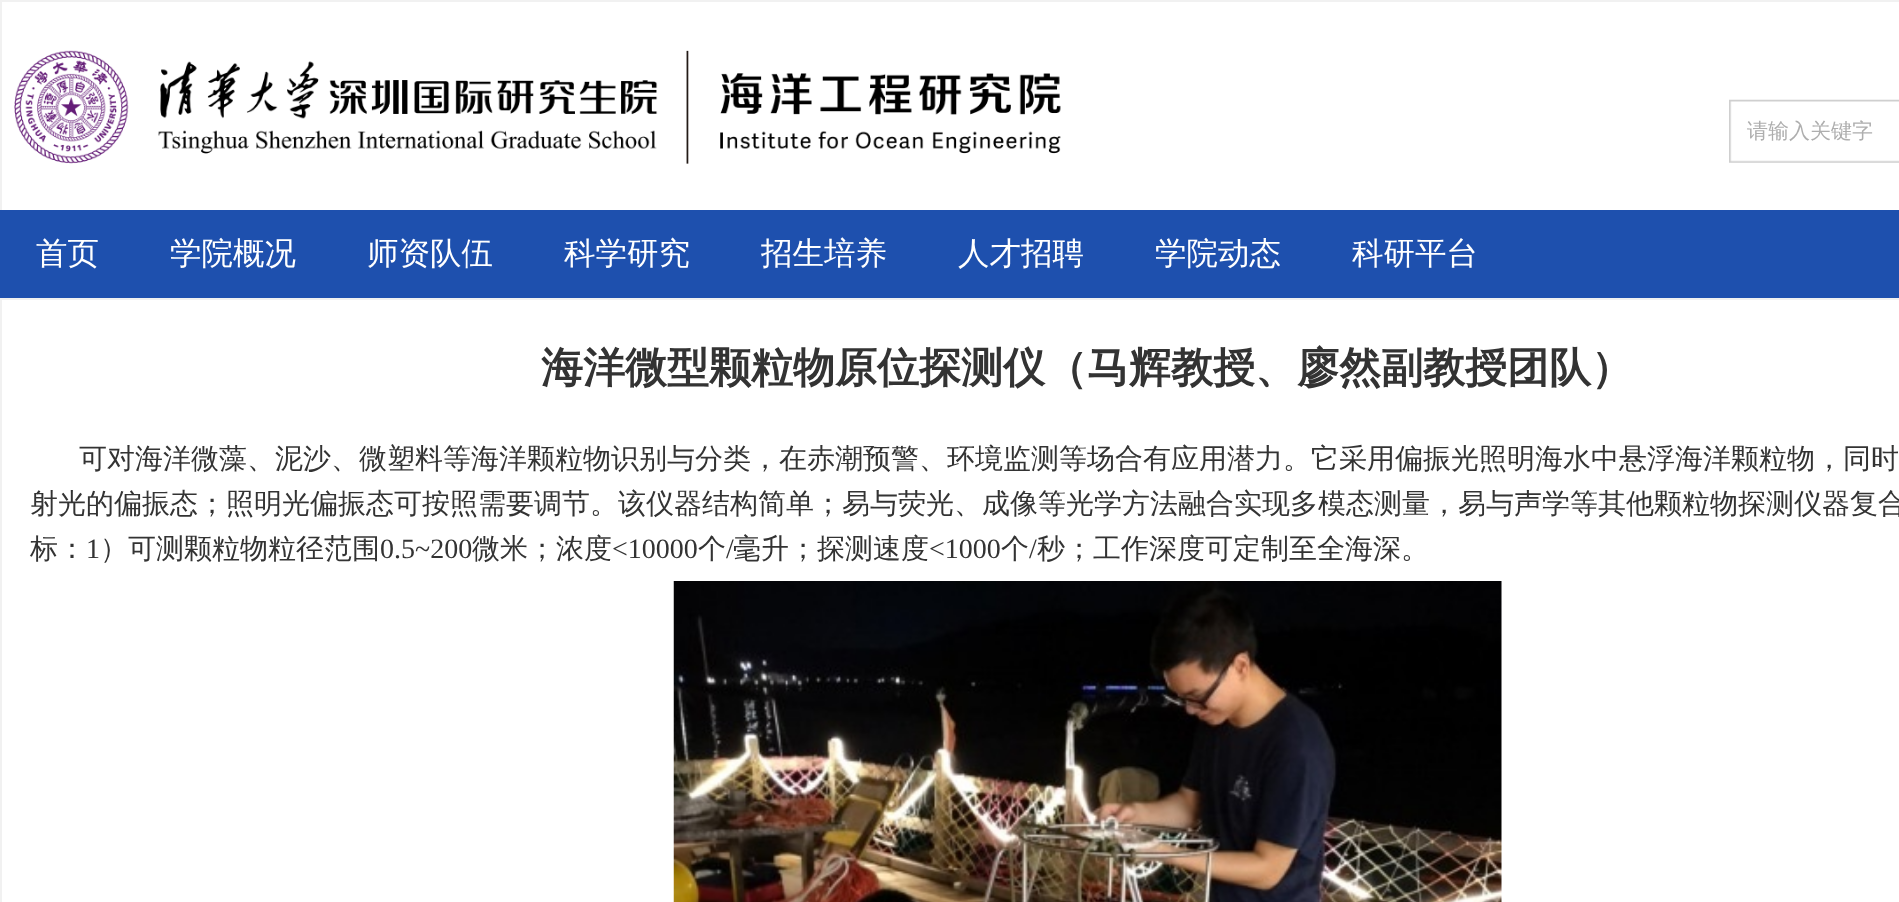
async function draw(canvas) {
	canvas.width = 1899;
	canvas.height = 902;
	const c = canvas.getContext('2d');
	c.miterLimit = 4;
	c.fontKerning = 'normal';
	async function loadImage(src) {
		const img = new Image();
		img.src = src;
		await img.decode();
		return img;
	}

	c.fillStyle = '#fff';
	c.fillRect(0, 0, 1899, 902);
	c.strokeStyle = '#f1f1f1';
	c.lineWidth = 2;
	c.strokeRect(1, 1, 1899, 212);
	c.drawImage(await loadImage('img1.png'), 14, 50, 1047, 114);
	c.drawImage(await loadImage('img2.png'), 1729, 99, 170, 64);
	c.font = '500 21px WenQuanYi Zen Hei';
	c.fillStyle = '#aeaeae';
	c.fillText('请输入关键字', 1747, 138);
	c.fillStyle = '#1e50ae';
	c.fillRect(0, 210, 1899, 88);
	c.font = '500 31.5px WenQuanYi Zen Hei';
	c.fillStyle = '#fff';
	for (const [text, x, y] of [
		['首页', 36, 264],
		['学院概况', 170, 264],
		['师资队伍', 367, 264],
		['科学研究', 564, 264],
		['招生培养', 761, 264],
		['人才招聘', 958, 264],
		['学院动态', 1155, 264],
		['科研平台', 1352, 264],
	]) {
		c.fillText(text, x, y);
	}
	c.strokeRect(1, 299, 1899, 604);
	c.font = 'bold 42px WenQuanYi Zen Hei';
	c.fillStyle = '#333';
	c.fillText('海洋微型颗粒物原位探测仪（马辉教授、廖然副教授团队）', 541, 382);
	c.font = '500 28px WenQuanYi Zen Hei';
	for (const [text, x, y] of [
		['可对海洋微藻、泥沙、微塑料等海洋颗粒物识别与分类，在赤潮预警、环境监测等场合有应用潜力。它采用偏振光照明海水中悬浮海洋颗粒物，同时', 79, 468],
		['射光的偏振态；照明光偏振态可按照需要调节。该仪器结构简单；易与荧光、成像等光学方法融合实现多模态测量，易与声学等其他颗粒物探测仪器复合', 30, 513],
		['标：', 30, 558],
	]) {
		c.fillText(text, x, y);
	}
	c.font = '28px Liberation Serif';
	c.fillText('1', 86, 558);
	c.font = '500 28px WenQuanYi Zen Hei';
	c.fillText('）可测颗粒物粒径范围', 100, 558);
	c.font = '28px Liberation Serif';
	c.fillText('0.5~200', 380, 558);
	c.font = '500 28px WenQuanYi Zen Hei';
	c.fillText('微米；浓度', 472, 558);
	c.font = '28px Liberation Serif';
	c.fillText('<10000', 612, 558);
	c.font = '500 28px WenQuanYi Zen Hei';
	c.fillText('个', 698, 558);
	c.font = '28px Liberation Serif';
	c.fillText('/', 726, 558);
	c.font = '500 28px WenQuanYi Zen Hei';
	c.fillText('毫升；探测速度', 733, 558);
	c.font = '28px Liberation Serif';
	c.fillText('<1000', 929, 558);
	c.font = '500 28px WenQuanYi Zen Hei';
	c.fillText('个', 1001, 558);
	c.font = '28px Liberation Serif';
	c.fillText('/', 1029, 558);
	c.font = '500 28px WenQuanYi Zen Hei';
	c.fillText('秒；工作深度可定制至全海深。', 1037, 558);
	c.drawImage(await loadImage('img3.png'), 673, 581, 829, 321);
}

draw(document.querySelector('canvas'));
